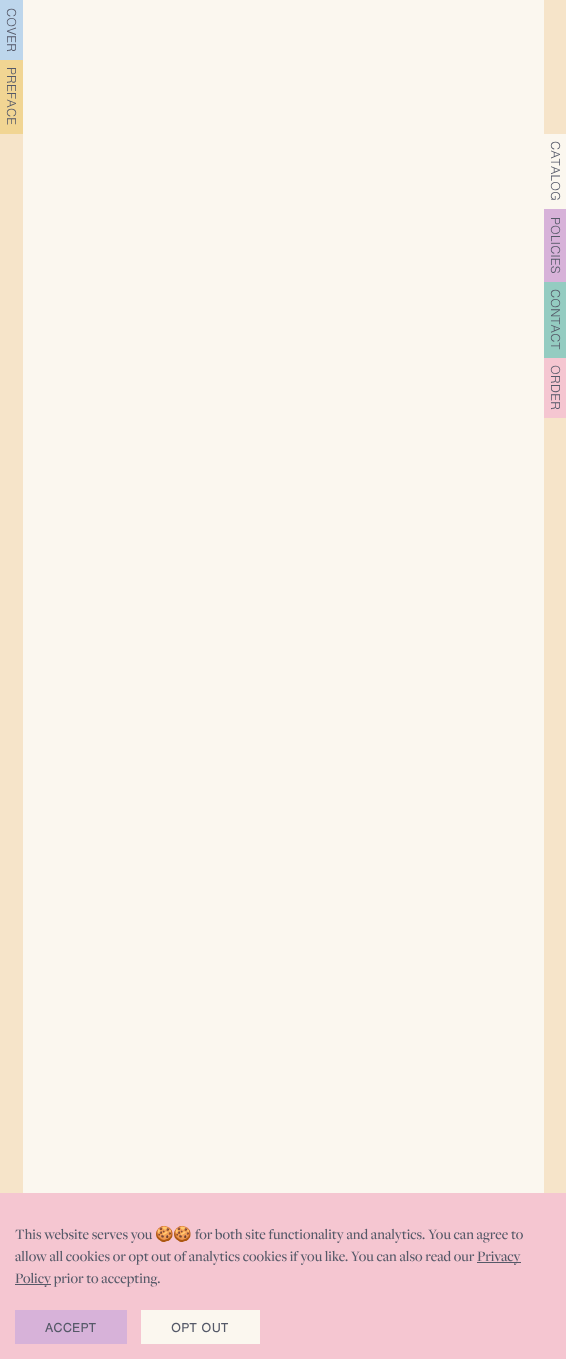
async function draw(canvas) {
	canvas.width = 566;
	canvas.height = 1359;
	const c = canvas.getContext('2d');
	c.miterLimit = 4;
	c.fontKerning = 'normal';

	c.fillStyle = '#f6e4c9';
	c.fillRect(0, 0, 566, 1359);
	c.fillStyle = '#fbf7ef';
	c.fillRect(23, 0, 521, 1193);
	c.fillStyle = '#bdd6ec';
	c.fillRect(0, 0, 23, 60);
	c.letterSpacing = '0.25px';
	c.font = '13.5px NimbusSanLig';
	c.fillStyle = '#555968';
	c.save();
	c.translate(7, 8);
	c.rotate(90 * Math.PI / 180);
	c.fillText('COVER', 0, 0);
	c.restore();
	c.fillStyle = '#f1d593';
	c.fillRect(0, 60, 23, 74);
	c.fillStyle = '#555968';
	c.save();
	c.translate(7, 67);
	c.rotate(90 * Math.PI / 180);
	c.fillText('PREFACE', 0, 0);
	c.restore();
	c.fillStyle = '#fbf7ef';
	c.fillRect(544, 134, 22, 75);
	c.fillStyle = '#555968';
	c.save();
	c.translate(551, 141);
	c.rotate(90 * Math.PI / 180);
	c.fillText('CATALOG', 0, 0);
	c.restore();
	c.fillStyle = '#d7b2d9';
	c.fillRect(544, 209, 22, 73);
	c.fillStyle = '#555968';
	c.save();
	c.translate(551, 217);
	c.rotate(90 * Math.PI / 180);
	c.fillText('POLICIES', 0, 0);
	c.restore();
	c.fillStyle = '#94ccc1';
	c.fillRect(544, 282, 22, 76);
	c.fillStyle = '#555968';
	c.save();
	c.translate(551, 289);
	c.rotate(90 * Math.PI / 180);
	c.fillText('CONTACT', 0, 0);
	c.restore();
	c.fillStyle = '#f5c6d1';
	c.fillRect(544, 358, 22, 60);
	c.fillStyle = '#555968';
	c.save();
	c.translate(551, 365);
	c.rotate(90 * Math.PI / 180);
	c.fillText('ORDER', 0, 0);
	c.restore();
	c.fillStyle = '#f5c6d1';
	c.fillRect(0, 1193, 566, 166);
	c.letterSpacing = '0px';
	c.font = '500 15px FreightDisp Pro';
	c.fillStyle = '#555968';
	c.fillText('This website serves you', 15, 1239);
	c.font = '15px Noto Color Emoji';
	c.fillText('🍪🍪', 155, 1239);
	c.font = '500 15px FreightDisp Pro';
	c.fillText('for both site functionality and analytics. You can agree to', 195, 1239);
	c.fillText('allow all cookies or opt out of analytics cookies if you like. You can also read our', 15, 1261);
	c.fillRect(477, 1262, 44, 1);
	c.fillText('Privacy', 477, 1261);
	c.fillRect(15, 1284, 36, 1);
	c.fillText('Policy prior to accepting.', 15, 1283);
	c.fillStyle = '#d7b2d9';
	c.fillRect(15, 1310, 112, 34);
	c.letterSpacing = '0.25px';
	c.font = '13.5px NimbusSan';
	c.fillStyle = '#555968';
	c.fillText('ACCEPT', 45, 1332);
	c.fillStyle = '#fbf7ef';
	c.fillRect(141, 1310, 119, 34);
	c.fillStyle = '#555968';
	c.fillText('OPT OUT', 171, 1332);
}

draw(document.querySelector('canvas'));
